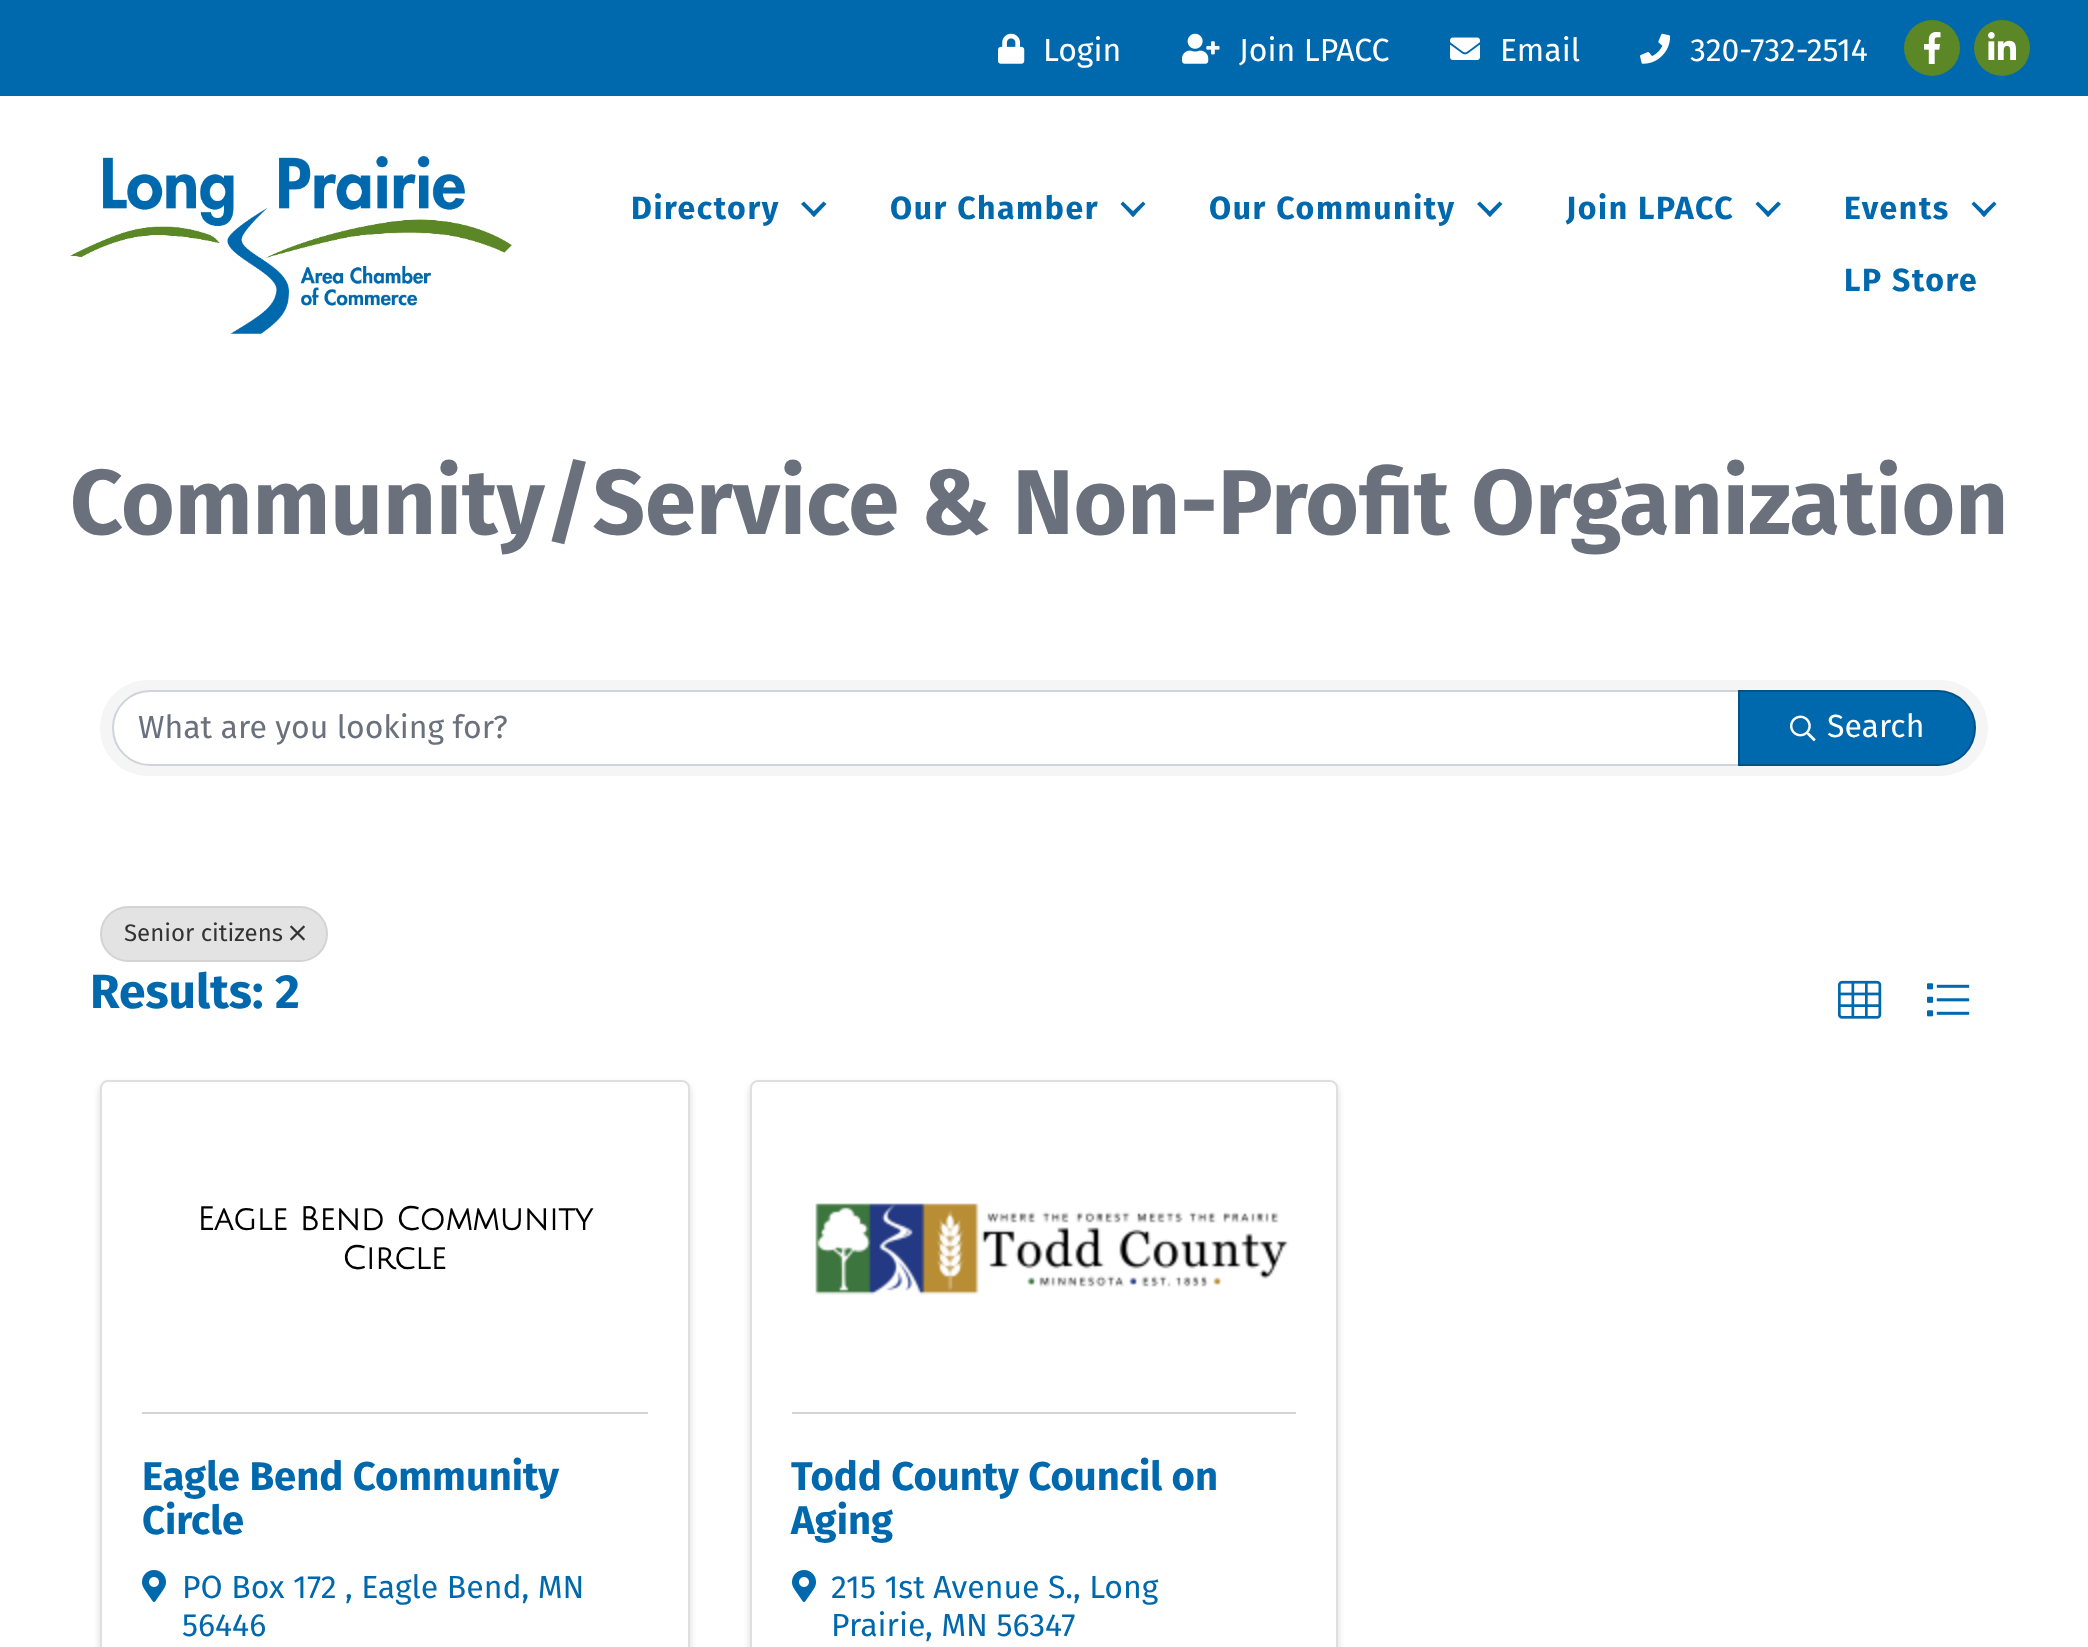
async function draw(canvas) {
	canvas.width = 2088;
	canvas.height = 1647;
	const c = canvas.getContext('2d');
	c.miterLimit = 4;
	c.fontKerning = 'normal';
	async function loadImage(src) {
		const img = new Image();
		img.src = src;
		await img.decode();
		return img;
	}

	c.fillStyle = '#0068ac';
	c.fillRect(0, 0, 2088, 1647);
	c.drawImage(await loadImage('img1.png'), 998, 33, 27, 31);
	c.font = '32px Fira Sans';
	c.fillStyle = '#fff';
	c.fillText('Login', 1043, 61);
	c.drawImage(await loadImage('img2.png'), 1182, 33, 38, 31);
	c.fillText('Join LPACC', 1239, 61);
	c.drawImage(await loadImage('img3.png'), 1450, 37, 30, 23);
	c.fillText('Email', 1500, 61);
	c.drawImage(await loadImage('img4.png'), 1640, 33, 31, 31);
	c.fillText('320-732-2514', 1690, 61);
	c.fillStyle = '#5c8727';
	c.beginPath();
	c.arc(1932, 48, 28, 0, 2 * Math.PI);
	c.fill();
	c.drawImage(await loadImage('img5.png'), 1924, 32, 17, 32);
	c.beginPath();
	c.arc(2002, 48, 28, 0, 2 * Math.PI);
	c.fill();
	c.drawImage(await loadImage('img6.png'), 1988, 32, 28, 28);
	c.fillStyle = '#fff';
	c.fillRect(0, 96, 2088, 1551);
	c.drawImage(await loadImage('img7.png'), 70, 156, 442, 178);
	c.letterSpacing = '1.6px';
	c.font = 'bold 32px Fira Sans';
	c.fillStyle = '#0068ac';
	c.fillText('Directory', 631, 219);
	c.beginPath();
	c.moveTo(823.5, 201.5);
	c.lineTo(826.5, 204);
	c.lineTo(814, 217);
	c.lineTo(811, 214);
	c.closePath();
	c.fill();
	c.beginPath();
	c.moveTo(804, 201.5);
	c.lineTo(816.5, 214);
	c.lineTo(814, 217);
	c.lineTo(801, 204);
	c.closePath();
	c.fill();
	c.fillText('Our Chamber', 890, 219);
	c.beginPath();
	c.moveTo(1143, 201.5);
	c.lineTo(1145.5, 204);
	c.lineTo(1133, 217);
	c.lineTo(1130, 214);
	c.closePath();
	c.fill();
	c.beginPath();
	c.moveTo(1123, 201.5);
	c.lineTo(1136, 214);
	c.lineTo(1133, 217);
	c.lineTo(1120.5, 204);
	c.closePath();
	c.fill();
	c.fillText('Our Community', 1209, 219);
	c.beginPath();
	c.moveTo(1499.5, 201.5);
	c.lineTo(1502.5, 204);
	c.lineTo(1490, 217);
	c.lineTo(1487, 214);
	c.closePath();
	c.fill();
	c.beginPath();
	c.moveTo(1480, 201.5);
	c.lineTo(1492.5, 214);
	c.lineTo(1490, 217);
	c.lineTo(1477, 204);
	c.closePath();
	c.fill();
	c.fillText('Join LPACC', 1566, 219);
	c.beginPath();
	c.moveTo(1778, 201.5);
	c.lineTo(1781, 204);
	c.lineTo(1768, 217);
	c.lineTo(1765.5, 214);
	c.closePath();
	c.fill();
	c.beginPath();
	c.moveTo(1758, 201.5);
	c.lineTo(1771, 214);
	c.lineTo(1768, 217);
	c.lineTo(1755.5, 204);
	c.closePath();
	c.fill();
	c.fillText('Events', 1844, 219);
	c.beginPath();
	c.moveTo(1994, 201.5);
	c.lineTo(1996.5, 204);
	c.lineTo(1984, 217);
	c.lineTo(1981, 214);
	c.closePath();
	c.fill();
	c.beginPath();
	c.moveTo(1974, 201.5);
	c.lineTo(1987, 214);
	c.lineTo(1984, 217);
	c.lineTo(1971.5, 204);
	c.closePath();
	c.fill();
	c.fillText('LP Store', 1844, 291);
	c.letterSpacing = '0px';
	c.font = 'bold 92px Fira Sans';
	c.fillStyle = '#6a707c';
	c.fillText('Community/Service & Non-Profit Organization', 70, 534);
	c.fillStyle = '#f5f5f5';
	c.beginPath();
	c.roundRect(100, 680, 1888, 96, 48);
	c.fill();
	c.fillStyle = '#fff';
	c.beginPath();
	c.roundRect(113, 691, 1626, 74, [37, 0, 0, 37]);
	c.fill();
	c.strokeStyle = '#ced4da';
	c.lineWidth = 2;
	c.stroke();
	c.font = '32px Fira Sans';
	c.fillStyle = '#6a707c';
	c.fillText('What are you looking for?', 138, 738);
	c.fillStyle = '#0068ac';
	c.beginPath();
	c.roundRect(1738, 690, 238, 76, [0, 38, 38, 0]);
	c.fill();
	c.beginPath();
	c.roundRect(1739, 691, 236, 74, [0, 37, 37, 0]);
	c.strokeStyle = '#00000033';
	c.stroke();
	c.drawImage(await loadImage('img8.png'), 1790, 715, 26, 27);
	c.fillStyle = '#fff';
	c.fillText('Search', 1827, 737);
	c.fillStyle = '#e3e3e3';
	c.beginPath();
	c.roundRect(100, 906, 228, 56, 28);
	c.fill();
	c.beginPath();
	c.roundRect(101, 907, 226, 54, 27);
	c.strokeStyle = '#00000012';
	c.stroke();
	c.font = '24px Fira Sans';
	c.fillStyle = '#333';
	c.fillText('Senior citizens', 124, 941);
	c.drawImage(await loadImage('img9.png'), 290, 925, 15, 16);
	c.font = 'bold 48px Fira Sans';
	c.fillStyle = '#0068ac';
	c.fillText('Results: 2', 90, 1008);
	c.drawImage(await loadImage('img10.png'), 1838, 980, 44, 39);
	c.drawImage(await loadImage('img11.png'), 1927, 983, 43, 34);
	c.fillStyle = '#00000026';
	c.filter = 'blur(3.5px)';
	c.beginPath();
	c.roundRect(100, 1084, 590, 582, 8);
	c.fill();
	c.filter = 'none';
	c.fillStyle = '#fff';
	c.beginPath();
	c.roundRect(101, 1081, 588, 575, 7);
	c.fill();
	c.strokeStyle = '#dfdfdf';
	c.stroke();
	c.font = 'bold 32px Julius Sans One';
	c.fillStyle = '#000';
	c.fillText('Eagle Bend Community', 197, 1230);
	c.fillText('Circle', 342, 1269);
	c.fillStyle = '#d4d4d4';
	c.fillRect(142, 1412, 506, 2);
	c.font = 'bold 40px Fira Sans';
	c.fillStyle = '#0068ac';
	c.fillText('Eagle Bend Community', 142, 1490);
	c.fillText('Circle', 142, 1534);
	c.drawImage(await loadImage('img12.png'), 142, 1570, 24, 32);
	c.font = '32px Fira Sans';
	c.fillText('PO Box 172 , Eagle Bend, MN', 182, 1598);
	c.fillText('56446', 182, 1636);
	c.fillStyle = '#00000026';
	c.filter = 'blur(3.5px)';
	c.beginPath();
	c.roundRect(750, 1084, 588, 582, 8);
	c.fill();
	c.filter = 'none';
	c.fillStyle = '#fff';
	c.beginPath();
	c.roundRect(751, 1081, 586, 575, 7);
	c.fill();
	c.stroke();
	c.drawImage(await loadImage('img13.png'), 815, 1203, 474, 92);
	c.fillStyle = '#d4d4d4';
	c.fillRect(792, 1412, 504, 2);
	c.font = 'bold 40px Fira Sans';
	c.fillStyle = '#0068ac';
	c.fillText('Todd County Council on', 791, 1490);
	c.fillText('Aging', 791, 1534);
	c.drawImage(await loadImage('img12.png'), 792, 1570, 24, 32);
	c.font = '32px Fira Sans';
	for (const [text, x, y] of [
		['215 1st Avenue S., Long', 831, 1598],
		['Prairie', 831, 1636],
		[', MN 56347', 925, 1636],
	]) {
		c.fillText(text, x, y);
	}
}

draw(document.querySelector('canvas'));
